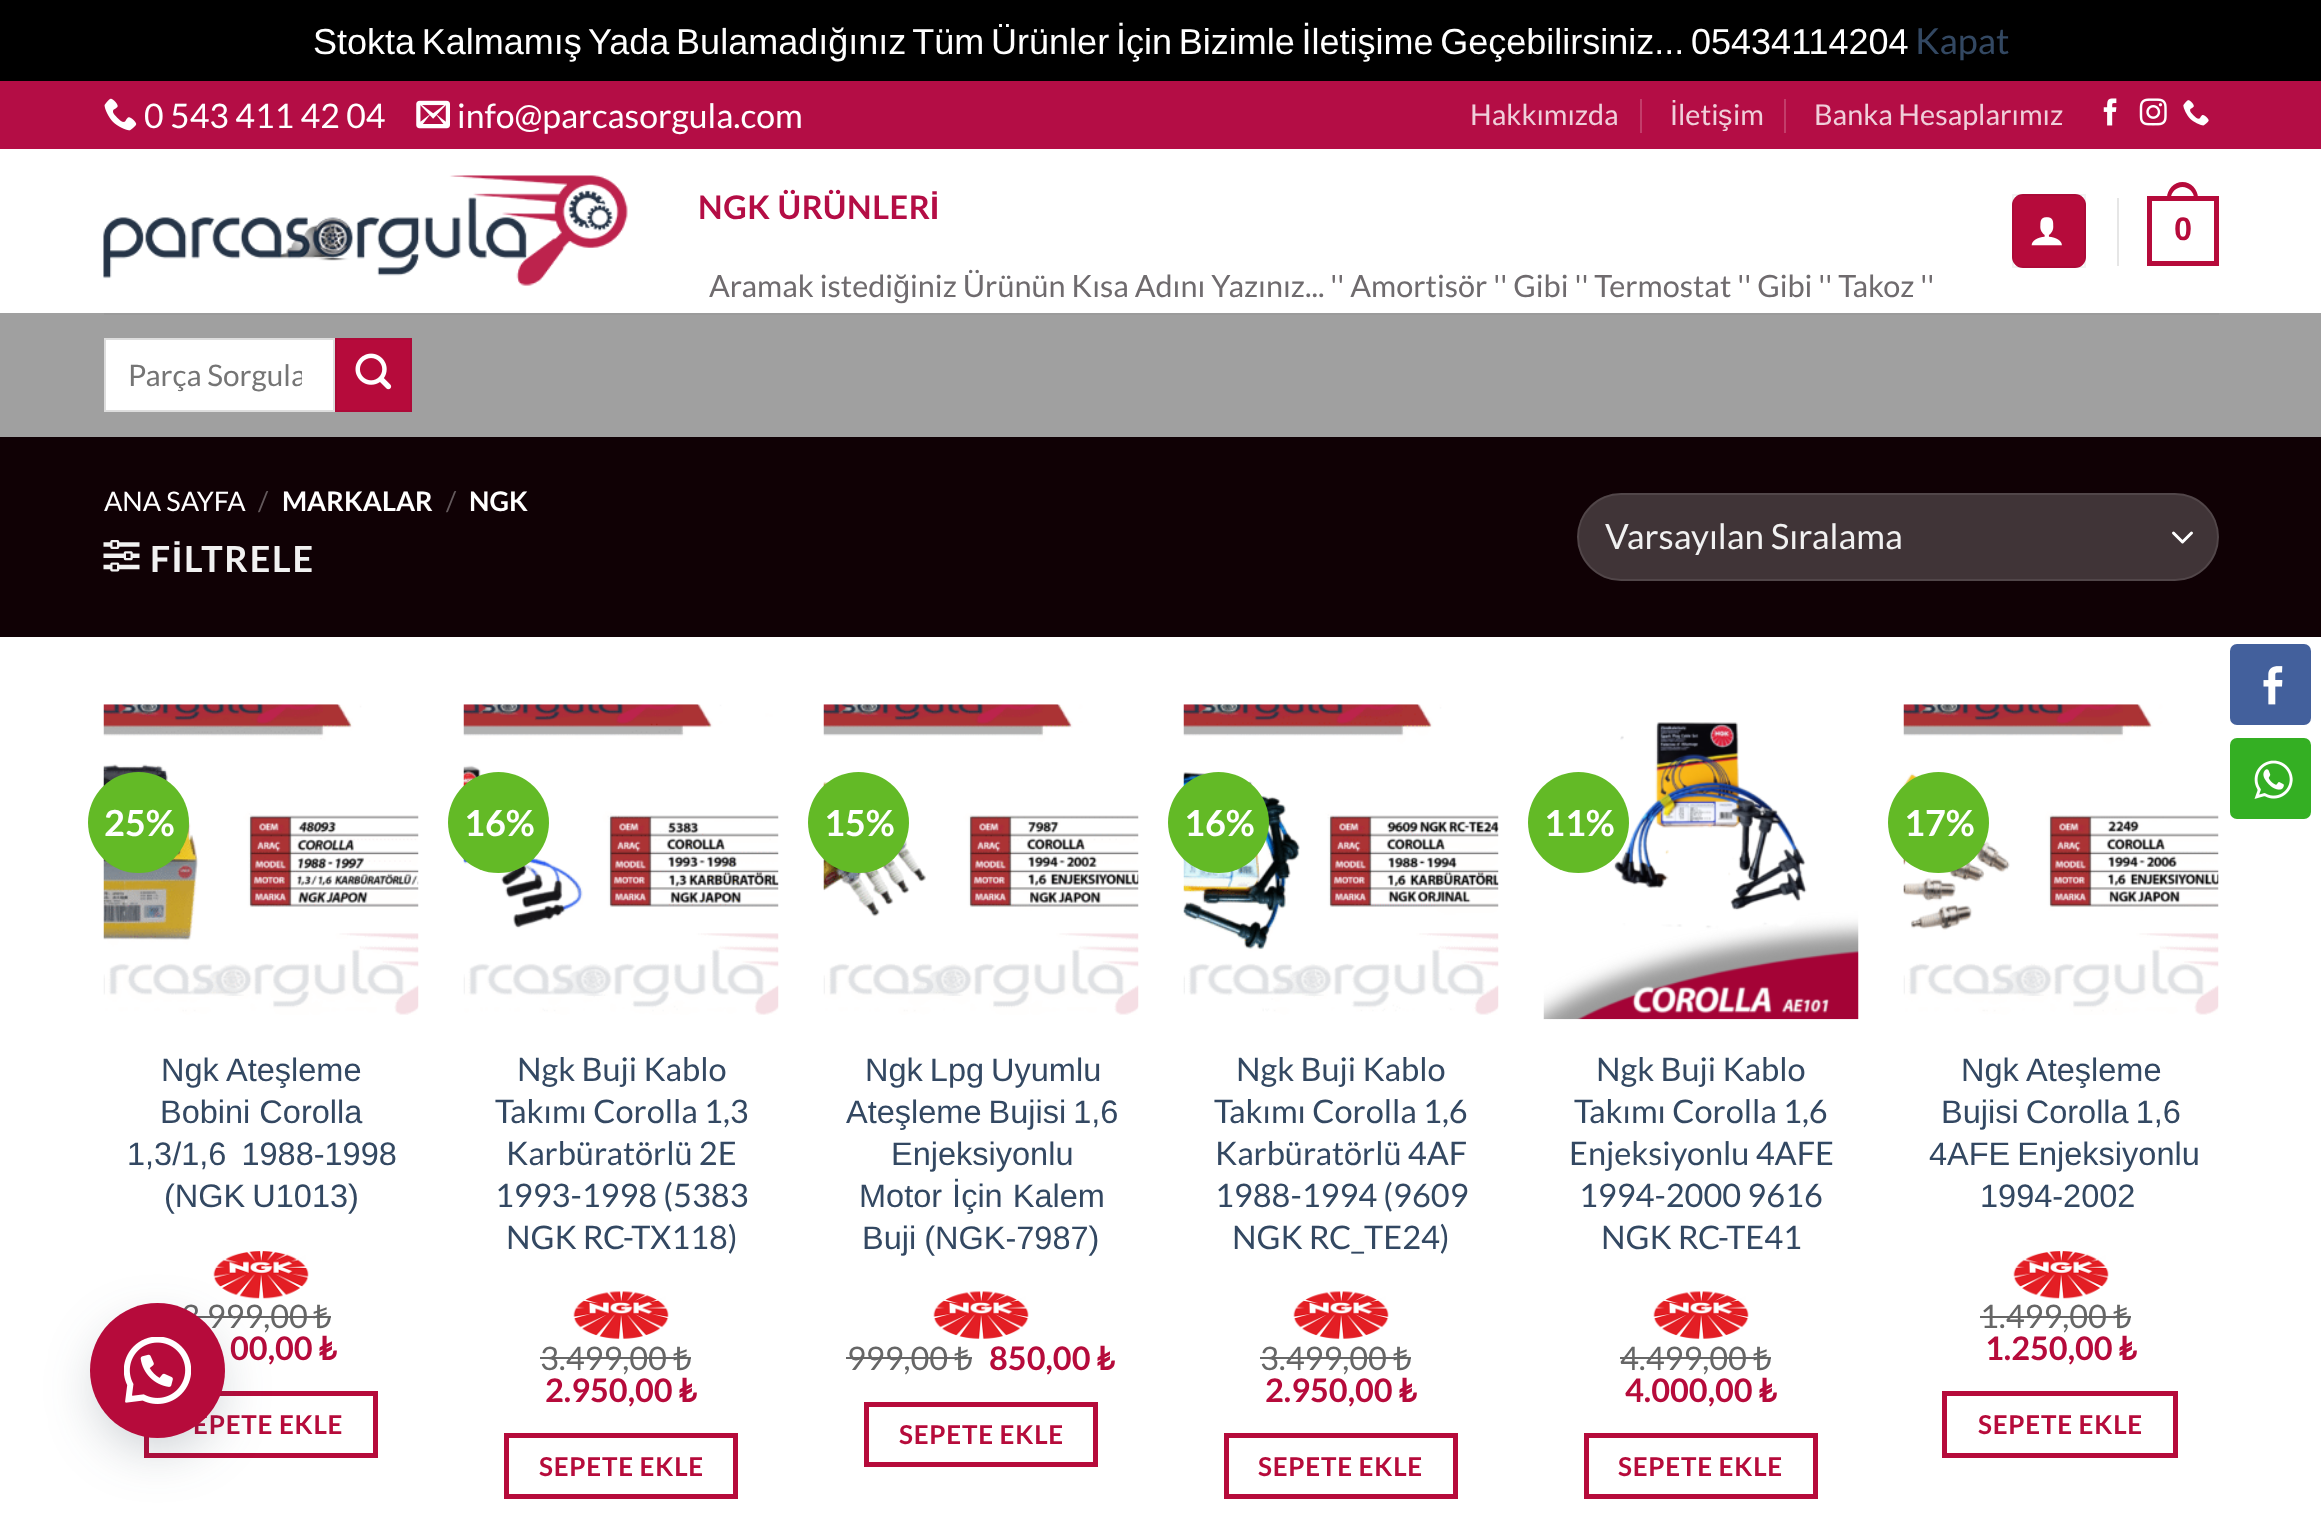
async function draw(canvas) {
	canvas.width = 2321;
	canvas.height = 1527;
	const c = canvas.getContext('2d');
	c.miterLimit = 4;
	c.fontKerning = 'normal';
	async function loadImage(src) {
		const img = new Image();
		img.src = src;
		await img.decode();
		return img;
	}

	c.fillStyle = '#000';
	c.fillRect(0, 0, 2321, 1527);
	c.wordSpacing = '-3.25px';
	c.font = '36px Liberation Sans';
	c.fillStyle = '#fff';
	c.fillText('Stokta Kalmamış Yada Bulamadığınız Tüm Ürünler İçin Bizimle İletişime Geçebilirsiniz... 05434114204', 313, 54);
	c.wordSpacing = '0px';
	c.font = '36px Lato';
	c.fillStyle = '#334862';
	c.fillText('Kapat', 1915, 54);
	c.fillStyle = '#fff';
	c.fillRect(0, 149, 2321, 1378);
	c.fillStyle = '#b40d45';
	c.fillRect(0, 81, 2321, 68);
	c.drawImage(await loadImage('img1.png'), 104, 98, 33, 33);
	c.font = '33.75px Lato';
	c.fillStyle = '#fff';
	c.fillText('0 543 411 42 04', 144, 128);
	c.drawImage(await loadImage('img2.png'), 416, 100, 34, 29);
	c.fillText('info@parcasorgula.com', 457, 128);
	c.font = '28.75px Lato';
	c.fillStyle = '#f0cfda';
	c.fillText('Hakkımızda', 1470, 125);
	c.fillStyle = '#c33d6a';
	c.fillRect(1640, 99, 2, 34);
	c.font = '28.75px Liberation Sans';
	c.fillStyle = '#f0cfda';
	c.fillText('İ', 1670, 125);
	c.font = '28.75px Lato';
	c.fillText('leti', 1678, 125);
	c.font = '28.75px Liberation Sans';
	c.fillText('ş', 1718, 125);
	c.font = '28.75px Lato';
	c.fillText('im', 1733, 125);
	c.fillStyle = '#c33d6a';
	c.fillRect(1784, 99, 2, 34);
	c.fillStyle = '#f0cfda';
	c.fillText('Banka Hesaplarımız', 1814, 125);
	c.drawImage(await loadImage('img3.png'), 2103, 98, 14, 28);
	c.drawImage(await loadImage('img4.png'), 2139, 98, 28, 28);
	c.drawImage(await loadImage('img5.png'), 2183, 100, 26, 26);
	c.drawImage(await loadImage('img6.png'), 103, 175, 525, 111);
	c.letterSpacing = '0.6px';
	c.font = 'bold 32.5px Lato';
	c.fillStyle = '#b40d45';
	c.fillText('NGK ÜRÜNLER', 698, 219);
	c.font = 'bold 32.5px Liberation Sans';
	c.fillText('İ', 930, 219);
	c.letterSpacing = '0px';
	c.font = '30.6px Lato';
	c.fillStyle = '#6f6b6e';
	c.fillText('Aramak istedi', 709, 297);
	c.font = '30.6px Liberation Sans';
	c.fillText('ğ', 893, 297);
	c.font = '30.6px Lato';
	c.fillText('iniz Ürünün Kısa Adını Yazınız... \'\' Amortisör \'\' Gibi \'\' Termostat \'\' Gibi \'\' Takoz \'\'', 910, 297);
	c.fillStyle = '#b60b3b';
	c.beginPath();
	c.roundRect(2012, 194, 74, 74, 11);
	c.fill();
	c.strokeStyle = '#0000000d';
	c.lineWidth = 2;
	c.strokeRect(2013, 195, 72, 72);
	c.drawImage(await loadImage('img7.png'), 2031, 217, 31, 29);
	c.fillStyle = '#e6e6e6';
	c.fillRect(2117, 198, 2, 68);
	c.strokeStyle = '#b60b3b';
	c.lineWidth = 5;
	c.strokeRect(2149.5, 198.5, 67, 65);
	c.fillStyle = '#b60b3b';
	c.beginPath();
	c.moveTo(2182.5, 182);
	c.bezierCurveTo(2191, 182, 2198, 189.5, 2198, 198);
	c.lineTo(2198, 200);
	c.lineTo(2167, 200);
	c.lineTo(2167, 198);
	c.bezierCurveTo(2167, 189.5, 2174, 182, 2182.5, 182);
	c.closePath();
	c.moveTo(2182.5, 187);
	c.bezierCurveTo(2188.5, 187, 2194, 192, 2194, 198);
	c.lineTo(2194, 200);
	c.lineTo(2171, 200);
	c.lineTo(2171, 198);
	c.bezierCurveTo(2171, 192, 2176.5, 187, 2182.5, 187);
	c.closePath();
	c.fill('evenodd');
	c.letterSpacing = '0.6px';
	c.font = 'bold 32.5px Liberation Sans';
	c.fillText('0', 2174, 240);
	c.fillStyle = '#a0a0a0';
	c.fillRect(0, 313, 2321, 124);
	c.fillStyle = '#9b9b9b';
	c.fillRect(104, 313, 2115, 2);
	c.fillStyle = '#fff';
	c.beginPath();
	c.rect(105, 339, 229, 72);
	c.fill();
	c.strokeStyle = '#ddd';
	c.lineWidth = 2;
	c.stroke();
	c.save();
	c.beginPath();
	c.rect(128, 358, 174, 36);
	c.clip();
	c.letterSpacing = '0px';
	c.font = '29.75px Lato';
	c.fillStyle = '#757575';
	c.fillText('Parça Sorgula', 128, 386);
	c.restore();
	c.fillStyle = '#b60b3b';
	c.beginPath();
	c.rect(336, 339, 75, 72);
	c.fill();
	c.strokeStyle = '#ad0a38';
	c.stroke();
	c.drawImage(await loadImage('img8.png'), 355, 353, 37, 37);
	c.fillStyle = '#100105';
	c.fillRect(0, 437, 2321, 200);
	c.letterSpacing = '0px';
	c.font = '27px Lato';
	c.fillStyle = '#fff';
	c.fillText('ANA SAYFA', 104, 511);
	c.fillStyle = '#645a5d';
	c.fillText('/', 258, 511);
	c.font = 'bold 27px Lato';
	c.fillStyle = '#fff';
	c.fillText('MARKALAR', 282, 511);
	c.font = '27px Lato';
	c.fillStyle = '#645a5d';
	c.fillText('/', 446, 511);
	c.font = 'bold 27px Lato';
	c.fillStyle = '#fff';
	c.fillText('NGK', 469, 511);
	c.drawImage(await loadImage('img9.png'), 103, 540, 37, 32);
	c.letterSpacing = '1.75px';
	c.font = 'bold 36px Lato';
	c.fillStyle = '#f1f1f1';
	c.fillText('F', 150, 572);
	c.font = 'bold 36px Liberation Sans';
	c.fillText('İ', 172, 572);
	c.font = 'bold 36px Lato';
	c.fillText('LTRELE', 184, 572);
	c.fillStyle = '#403437';
	c.beginPath();
	c.roundRect(1577, 493, 642, 88, 44);
	c.fill();
	c.beginPath();
	c.moveTo(2173.5, 533);
	c.lineTo(2182.5, 542);
	c.lineTo(2191.5, 533);
	c.strokeStyle = '#fff';
	c.lineWidth = 3;
	c.lineCap = 'round';
	c.lineJoin = 'round';
	c.stroke();
	c.beginPath();
	c.roundRect(1578, 494, 640, 86, 43);
	c.strokeStyle = '#ffffff17';
	c.lineWidth = 2;
	c.lineJoin = 'miter';
	c.stroke();
	c.letterSpacing = '0px';
	c.font = '35px Lato';
	c.fillStyle = '#f1f1f1';
	c.fillText('Varsayılan Sıralama', 1605, 549);
	c.drawImage(await loadImage('img10.png'), 103, 704, 316, 311);
	c.fillStyle = '#63ba26';
	c.beginPath();
	c.arc(138.5, 822.5, 50.5, 0, 2 * Math.PI);
	c.fill();
	c.font = 'bold 36px Lato';
	c.fillStyle = '#fff';
	c.fillText('25%', 104, 836);
	c.font = '32.5px Liberation Sans';
	c.fillStyle = '#334862';
	c.fillText('Ngk Ateşleme', 161, 1081);
	c.fillText('Bobini Corolla', 160, 1123);
	c.wordSpacing = '6px';
	c.fillText('1,3/1,6 1988-1998', 127, 1165);
	c.wordSpacing = '-2px';
	c.fillText('(NGK U1013)', 164, 1207);
	c.drawImage(await loadImage('img11.png'), 213, 1251, 96, 48);
	c.wordSpacing = '0px';
	c.font = '32.5px Lato';
	c.fillStyle = '#666';
	c.fillText('3.999,00', 181, 1328);
	c.font = '32.5px Noto Sans';
	c.fillText('₺', 313, 1328);
	c.fillRect(197, 1316, 116, 2);
	c.fillRect(313, 1316, 18, 2);
	c.font = 'bold 32.5px Lato';
	c.fillStyle = '#b60b3b';
	c.fillText('00,00', 230, 1360);
	c.font = 'bold 32.5px "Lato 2"';
	c.fillText('₺', 318, 1360);
	c.strokeStyle = '#b60b3b';
	c.lineWidth = 5;
	c.strokeRect(146.5, 1393.5, 229, 62);
	c.letterSpacing = '0.75px';
	c.font = 'bold 26px Lato';
	c.fillText('EPETE EKLE', 193, 1434);
	c.drawImage(await loadImage('img12.png'), 463, 704, 316, 311);
	c.fillStyle = '#63ba26';
	c.beginPath();
	c.arc(498.5, 822.5, 50.5, 0, 2 * Math.PI);
	c.fill();
	c.letterSpacing = '0px';
	c.font = 'bold 36px Lato';
	c.fillStyle = '#fff';
	c.fillText('16%', 464, 836);
	c.font = '32.5px Lato';
	c.fillStyle = '#334862';
	for (const [text, x, y] of [
		['Ngk Buji Kablo', 517, 1081],
		['Takımı Corolla 1,3', 495, 1123],
		['Karbüratörlü 2E', 506, 1165],
		['1993-1998 (5383', 495, 1207],
		['NGK RC-TX118)', 506, 1249],
	]) {
		c.fillText(text, x, y);
	}
	c.drawImage(await loadImage('img13.png'), 573, 1291, 96, 48);
	c.fillStyle = '#666';
	c.fillText('3.499,00', 540, 1370);
	c.font = '32.5px Noto Sans';
	c.fillText('₺', 673, 1370);
	c.fillRect(540, 1357, 133, 2);
	c.fillRect(673, 1357, 18, 2);
	c.font = 'bold 32.5px Lato';
	c.fillStyle = '#b60b3b';
	c.fillText('2.950,00', 545, 1402);
	c.font = 'bold 32.5px "Lato 2"';
	c.fillText('₺', 678, 1402);
	c.strokeRect(506.5, 1435.5, 229, 61);
	c.letterSpacing = '0.75px';
	c.font = 'bold 26px Lato';
	c.fillText('SEPETE EKLE', 539, 1476);
	c.drawImage(await loadImage('img14.png'), 823, 704, 316, 311);
	c.fillStyle = '#63ba26';
	c.beginPath();
	c.arc(858.5, 822.5, 50.5, 0, 2 * Math.PI);
	c.fill();
	c.letterSpacing = '0px';
	c.font = 'bold 36px Lato';
	c.fillStyle = '#fff';
	c.fillText('15%', 824, 836);
	c.wordSpacing = '-2px';
	c.font = '32.5px Liberation Sans';
	c.fillStyle = '#334862';
	c.fillText('Ngk Lpg Uyumlu', 865, 1081);
	c.fillText('Ateşleme Bujisi 1,6', 846, 1123);
	c.wordSpacing = '0px';
	c.fillText('Enjeksiyonlu', 891, 1165);
	c.wordSpacing = '1px';
	c.fillText('Motor İçin Kalem', 859, 1207);
	c.wordSpacing = '-1px';
	c.fillText('Buji (NGK-7987)', 862, 1249);
	c.drawImage(await loadImage('img13.png'), 933, 1291, 96, 48);
	c.wordSpacing = '0px';
	c.font = '32.5px Lato';
	c.fillStyle = '#666';
	c.fillText('999,00', 847, 1370);
	c.font = '32.5px Noto Sans';
	c.fillText('₺', 954, 1370);
	c.fillRect(846, 1357, 108, 2);
	c.fillRect(954, 1357, 18, 2);
	c.font = 'bold 32.5px Lato';
	c.fillStyle = '#b60b3b';
	c.fillText('850,00', 989, 1370);
	c.font = 'bold 32.5px "Lato 2"';
	c.fillText('₺', 1096, 1370);
	c.strokeRect(866.5, 1404.5, 229, 60);
	c.letterSpacing = '0.75px';
	c.font = 'bold 26px Lato';
	c.fillText('SEPETE EKLE', 899, 1444);
	c.drawImage(await loadImage('img15.png'), 1183, 704, 316, 311);
	c.fillStyle = '#63ba26';
	c.beginPath();
	c.arc(1218.5, 822.5, 50.5, 0, 2 * Math.PI);
	c.fill();
	c.letterSpacing = '0px';
	c.font = 'bold 36px Lato';
	c.fillStyle = '#fff';
	c.fillText('16%', 1184, 836);
	c.font = '32.5px Lato';
	c.fillStyle = '#334862';
	for (const [text, x, y] of [
		['Ngk Buji Kablo', 1236, 1081],
		['Takımı Corolla 1,6', 1214, 1123],
		['Karbüratörlü 4AF', 1215, 1165],
		['1988-1994 (9609', 1215, 1207],
		['NGK RC_TE24)', 1232, 1249],
	]) {
		c.fillText(text, x, y);
	}
	c.drawImage(await loadImage('img13.png'), 1293, 1291, 96, 48);
	c.fillStyle = '#666';
	c.fillText('3.499,00', 1260, 1370);
	c.font = '32.5px Noto Sans';
	c.fillText('₺', 1393, 1370);
	c.fillRect(1260, 1357, 133, 2);
	c.fillRect(1393, 1357, 18, 2);
	c.font = 'bold 32.5px Lato';
	c.fillStyle = '#b60b3b';
	c.fillText('2.950,00', 1265, 1402);
	c.font = 'bold 32.5px "Lato 2"';
	c.fillText('₺', 1398, 1402);
	c.strokeRect(1226.5, 1435.5, 229, 61);
	c.letterSpacing = '0.75px';
	c.font = 'bold 26px Lato';
	c.fillText('SEPETE EKLE', 1258, 1476);
	c.drawImage(await loadImage('img16.png'), 1543, 722, 316, 298);
	c.fillStyle = '#63ba26';
	c.beginPath();
	c.arc(1578.5, 822.5, 50.5, 0, 2 * Math.PI);
	c.fill();
	c.letterSpacing = '0px';
	c.font = 'bold 36px Lato';
	c.fillStyle = '#fff';
	c.fillText('11%', 1544, 836);
	c.font = '32.5px Lato';
	c.fillStyle = '#334862';
	for (const [text, x, y] of [
		['Ngk Buji Kablo', 1596, 1081],
		['Takımı Corolla 1,6', 1574, 1123],
		['Enjeksiyonlu 4AFE', 1569, 1165],
		['1994-2000 9616', 1579, 1207],
		['NGK RC-TE41', 1601, 1249],
	]) {
		c.fillText(text, x, y);
	}
	c.drawImage(await loadImage('img13.png'), 1653, 1291, 96, 48);
	c.fillStyle = '#666';
	c.fillText('4.499,00', 1620, 1370);
	c.font = '32.5px Noto Sans';
	c.fillText('₺', 1753, 1370);
	c.fillRect(1620, 1357, 133, 2);
	c.fillRect(1753, 1357, 18, 2);
	c.font = 'bold 32.5px Lato';
	c.fillStyle = '#b60b3b';
	c.fillText('4.000,00', 1625, 1402);
	c.font = 'bold 32.5px "Lato 2"';
	c.fillText('₺', 1758, 1402);
	c.strokeRect(1586.5, 1435.5, 229, 61);
	c.letterSpacing = '0.75px';
	c.font = 'bold 26px Lato';
	c.fillText('SEPETE EKLE', 1618, 1476);
	c.drawImage(await loadImage('img17.png'), 1903, 704, 316, 311);
	c.fillStyle = '#63ba26';
	c.beginPath();
	c.arc(1938.5, 822.5, 50.5, 0, 2 * Math.PI);
	c.fill();
	c.letterSpacing = '0px';
	c.font = 'bold 36px Lato';
	c.fillStyle = '#fff';
	c.fillText('17%', 1904, 836);
	c.font = '32.5px Liberation Sans';
	c.fillStyle = '#334862';
	c.fillText('Ngk Ateşleme', 1961, 1081);
	c.wordSpacing = '-2px';
	c.fillText('Bujisi Corolla 1,6', 1941, 1123);
	c.fillText('4AFE Enjeksiyonlu', 1929, 1165);
	c.wordSpacing = '0px';
	c.fillText('1994-2002', 1980, 1207);
	c.drawImage(await loadImage('img11.png'), 2013, 1251, 96, 48);
	c.font = '32.5px Lato';
	c.fillStyle = '#666';
	c.fillText('1.499,00', 1980, 1328);
	c.font = '32.5px Noto Sans';
	c.fillText('₺', 2113, 1328);
	c.fillRect(1980, 1316, 133, 2);
	c.fillRect(2113, 1316, 18, 2);
	c.font = 'bold 32.5px Lato';
	c.fillStyle = '#b60b3b';
	c.fillText('1.250,00', 1985, 1360);
	c.font = 'bold 32.5px "Lato 2"';
	c.fillText('₺', 2118, 1360);
	c.strokeRect(1944.5, 1393.5, 231, 62);
	c.letterSpacing = '0.75px';
	c.font = 'bold 26px Lato';
	c.fillText('SEPETE EKLE', 1978, 1434);
	c.fillStyle = '#43609c';
	c.beginPath();
	c.roundRect(2230, 644, 81, 81, 7);
	c.fill();
	c.drawImage(await loadImage('img18.png'), 2263, 666, 20, 39);
	c.fillStyle = '#34af23';
	c.beginPath();
	c.roundRect(2230, 738, 81, 81, 7);
	c.fill();
	c.drawImage(await loadImage('img19.png'), 2254, 760, 39, 39);
	c.fillStyle = '#2d3e4f4d';
	c.filter = 'blur(28px)';
	c.beginPath();
	c.roundRect(101, 1332, 113, 113, 56.5);
	c.fill();
	c.filter = 'none';
	c.fillStyle = '#b60b3b';
	c.beginPath();
	c.arc(157.5, 1370.5, 67.5, 0, 2 * Math.PI);
	c.fill();
	c.drawImage(await loadImage('img20.png'), 124, 1337, 67, 67);
}

draw(document.querySelector('canvas'));
